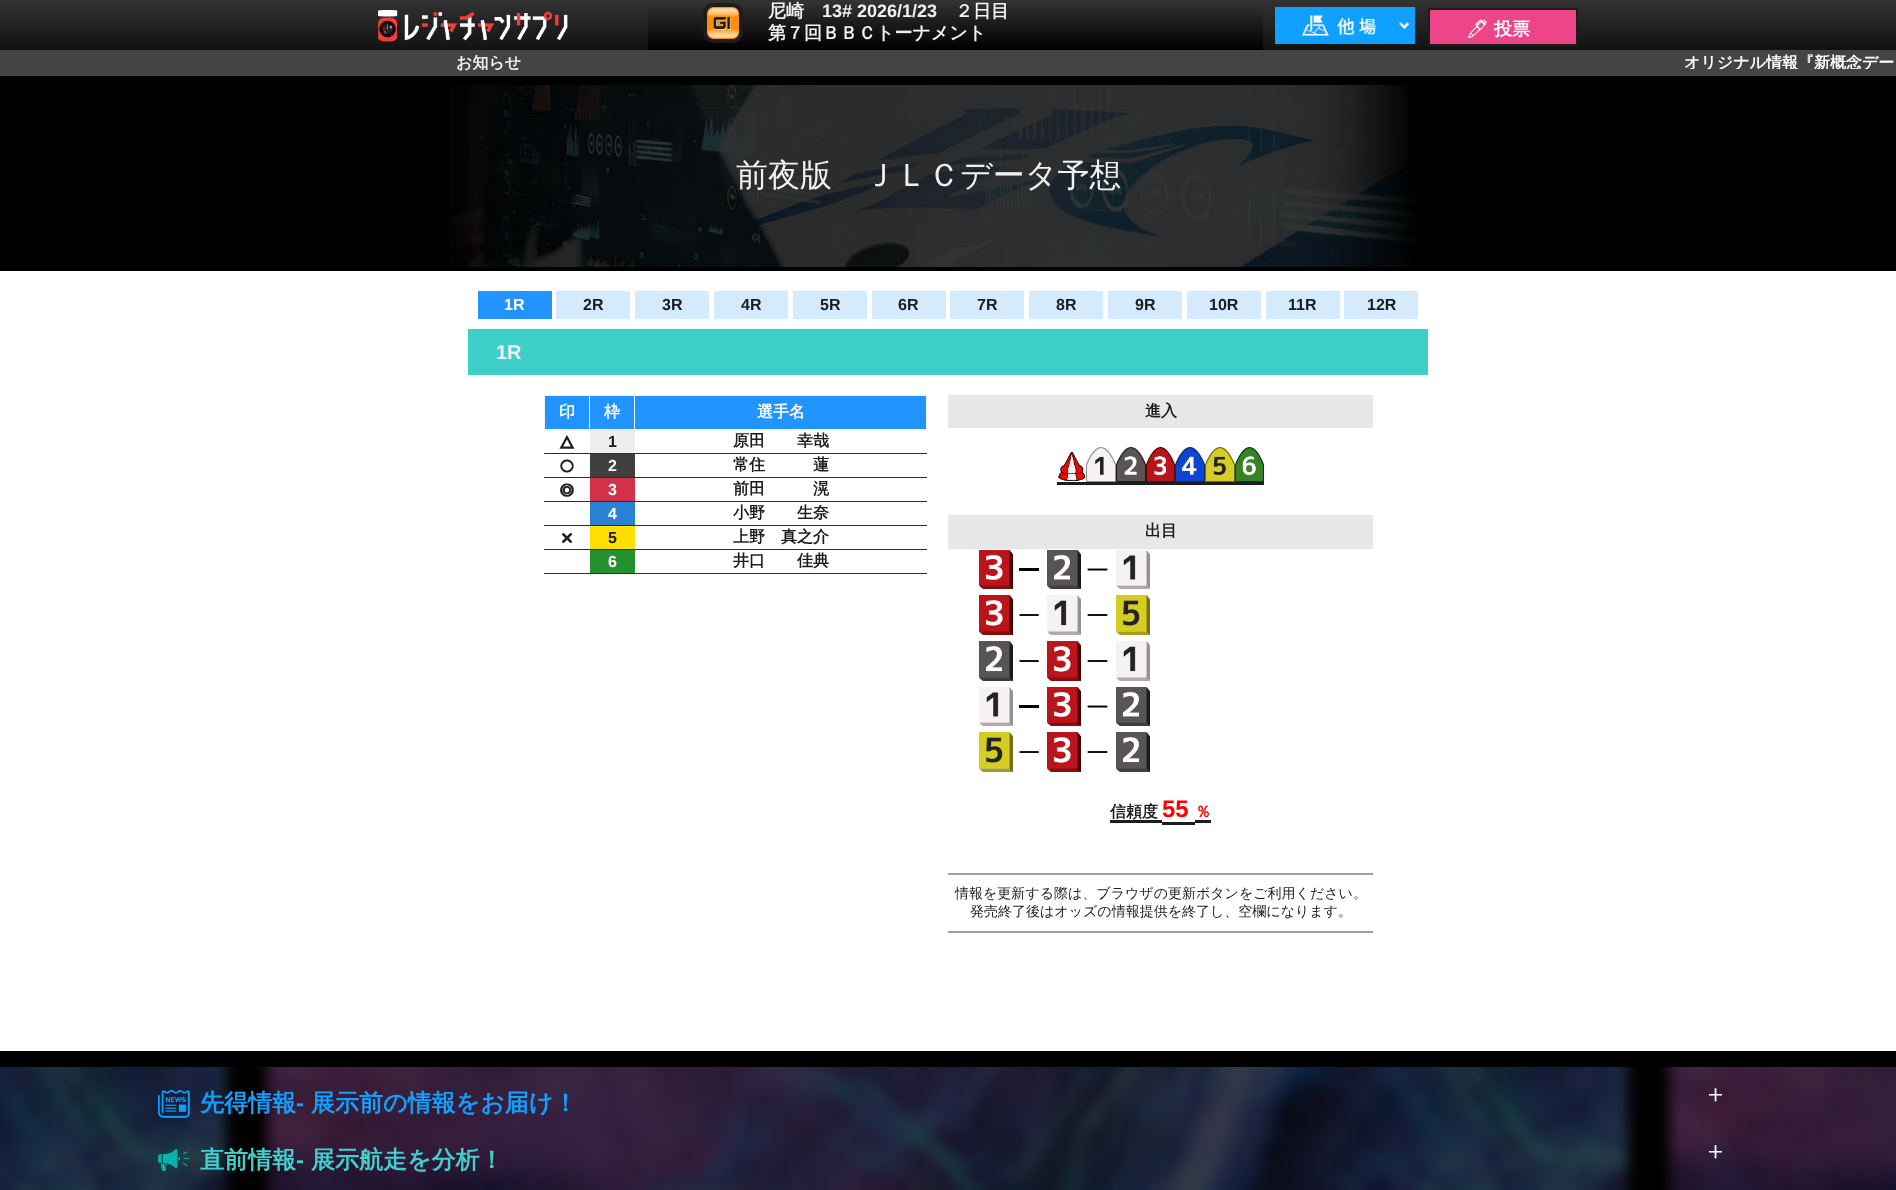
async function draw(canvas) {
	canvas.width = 1896;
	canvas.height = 1190;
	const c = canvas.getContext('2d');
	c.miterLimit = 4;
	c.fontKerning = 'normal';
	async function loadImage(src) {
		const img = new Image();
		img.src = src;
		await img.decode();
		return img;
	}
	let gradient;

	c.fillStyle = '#000';
	c.fillRect(0, 0, 1896, 1190);
	gradient = c.createLinearGradient(948, 0, 948, 76);
	gradient.addColorStop(0, '#333');
	gradient.addColorStop(1, '#000');
	c.fillStyle = gradient;
	c.fillRect(0, 0, 1896, 50);
	c.drawImage(await loadImage('img1.png'), 378, 10, 190, 32);
	gradient = c.createLinearGradient(956, 0, 956, 50);
	gradient.addColorStop(0, '#333');
	gradient.addColorStop(1, '#000');
	c.fillStyle = gradient;
	c.fillRect(648, 6, 615, 44);
	c.drawImage(await loadImage('img2.png'), 703, 3, 40, 40);
	c.font = 'bold 18px WenQuanYi Zen Hei';
	c.fillStyle = '#f0f0f0';
	c.fillText('尼崎', 768, 17);
	c.font = 'bold 18px Liberation Sans';
	c.fillText('13# 2026/1/23', 822, 17);
	c.font = 'bold 18px WenQuanYi Zen Hei';
	c.fillText('２日目', 955, 17);
	c.fillText('第７回ＢＢＣトーナメント', 768, 39);
	c.fillStyle = '#10a0ff';
	c.fillRect(1275, 7, 140, 37);
	c.drawImage(await loadImage('img3.png'), 1302, 15, 107, 21);
	c.beginPath();
	c.moveTo(1400.5, 23.5);
	c.lineTo(1404.5, 27.5);
	c.lineTo(1408.5, 23.5);
	c.strokeStyle = '#f0f0f0';
	c.lineWidth = 2;
	c.stroke();
	c.fillStyle = '#e48';
	c.fillRect(1430, 10, 146, 34);
	c.strokeStyle = '#1c1d1d';
	c.strokeRect(1429, 9, 148, 36);
	c.font = 'bold 18px Noto Emoji';
	c.fillStyle = '#fff';
	c.fillText('🖊', 1466, 35);
	c.font = 'bold 18px WenQuanYi Zen Hei';
	c.fillText('投票', 1494, 35);
	c.fillStyle = '#444';
	c.fillRect(0, 50, 1896, 26);
	c.font = 'bold 16px WenQuanYi Zen Hei';
	c.fillStyle = '#f0f0f0';
	c.fillText('お知らせ', 456, 68);
	c.save();
	c.beginPath();
	c.rect(542, 50, 1354, 19);
	c.clip();
	c.fillStyle = '#fff';
	c.fillText('オリジナル情報『新概念デー', 1684, 68);
	c.restore();
	c.drawImage(await loadImage('img4.png'), 449, 85, 967, 182);
	c.font = '500 32px WenQuanYi Zen Hei';
	c.fillText('前夜版　ＪＬＣデータ予想', 736, 186);
	c.fillStyle = '#fff';
	c.fillRect(0, 271, 1896, 780);
	c.fillStyle = '#2194ff';
	c.fillRect(478, 291, 74, 28);
	c.font = 'bold 16px Liberation Sans';
	c.fillStyle = '#fff';
	c.fillText('1R', 504, 310);
	c.fillStyle = '#d4eaff';
	c.fillRect(556, 291, 74, 28);
	c.fillStyle = '#1c1d1d';
	c.fillText('2R', 583, 310);
	c.fillStyle = '#d4eaff';
	c.fillRect(635, 291, 74, 28);
	c.fillStyle = '#1c1d1d';
	c.fillText('3R', 662, 310);
	c.fillStyle = '#d4eaff';
	c.fillRect(714, 291, 74, 28);
	c.fillStyle = '#1c1d1d';
	c.fillText('4R', 741, 310);
	c.fillStyle = '#d4eaff';
	c.fillRect(793, 291, 74, 28);
	c.fillStyle = '#1c1d1d';
	c.fillText('5R', 820, 310);
	c.fillStyle = '#d4eaff';
	c.fillRect(872, 291, 74, 28);
	c.fillStyle = '#1c1d1d';
	c.fillText('6R', 898, 310);
	c.fillStyle = '#d4eaff';
	c.fillRect(950, 291, 74, 28);
	c.fillStyle = '#1c1d1d';
	c.fillText('7R', 977, 310);
	c.fillStyle = '#d4eaff';
	c.fillRect(1029, 291, 74, 28);
	c.fillStyle = '#1c1d1d';
	c.fillText('8R', 1056, 310);
	c.fillStyle = '#d4eaff';
	c.fillRect(1108, 291, 74, 28);
	c.fillStyle = '#1c1d1d';
	c.fillText('9R', 1135, 310);
	c.fillStyle = '#d4eaff';
	c.fillRect(1187, 291, 74, 28);
	c.fillStyle = '#1c1d1d';
	c.fillText('10R', 1209, 310);
	c.fillStyle = '#d4eaff';
	c.fillRect(1266, 291, 74, 28);
	c.fillStyle = '#1c1d1d';
	c.fillText('11R', 1288, 310);
	c.fillStyle = '#d4eaff';
	c.fillRect(1344, 291, 74, 28);
	c.fillStyle = '#1c1d1d';
	c.fillText('12R', 1367, 310);
	c.fillStyle = '#3dd0ca';
	c.fillRect(468, 329, 960, 46);
	c.font = 'bold 20px Liberation Sans';
	c.fillStyle = '#f0f0f0';
	c.fillText('1R', 496, 359);
	for (const [x, y, w, h, color] of [
		[545, 396, 44, 33, '#2194ff'],
		[634, 395, 293, 1, '#f0f0f0'],
		[926, 395, 1, 35, '#f0f0f0'],
		[634, 429, 293, 1, '#f0f0f0'],
		[634, 395, 1, 35, '#f0f0f0'],
		[589, 395, 46, 1, '#f0f0f0'],
		[589, 429, 46, 1, '#f0f0f0'],
		[589, 395, 1, 35, '#f0f0f0'],
		[544, 395, 46, 1, '#f0f0f0'],
		[544, 429, 46, 1, '#f0f0f0'],
		[544, 395, 1, 35, '#f0f0f0'],
	]) {
		c.fillStyle = color;
		c.fillRect(x, y, w, h);
	}
	c.font = 'bold 16px WenQuanYi Zen Hei';
	c.fillStyle = '#fff';
	c.fillText('印', 559, 417);
	c.fillStyle = '#2194ff';
	c.fillRect(590, 396, 44, 33);
	c.fillStyle = '#fff';
	c.fillText('枠', 604, 417);
	c.fillStyle = '#2194ff';
	c.fillRect(635, 396, 291, 33);
	c.fillStyle = '#fff';
	c.fillText('選手名', 757, 417);
	c.drawImage(await loadImage('img5.png'), 559, 435, 16, 14);
	c.fillStyle = '#eee';
	c.fillRect(590, 430, 45, 23);
	c.font = 'bold 16px Liberation Sans';
	c.fillStyle = '#1c1d1d';
	c.fillText('1', 608, 447);
	c.fillStyle = '#2e2e2e';
	c.fillRect(544, 453, 383, 1);
	c.font = 'bold 16px WenQuanYi Zen Hei';
	c.fillStyle = '#1c1d1d';
	c.fillText('原田　　幸哉', 733, 446);
	c.drawImage(await loadImage('img6.png'), 560, 459, 14, 14);
	c.fillStyle = '#3f3f3f';
	c.fillRect(590, 454, 45, 23);
	c.font = 'bold 16px Liberation Sans';
	c.fillStyle = '#fff';
	c.fillText('2', 608, 471);
	c.fillStyle = '#2e2e2e';
	c.fillRect(544, 477, 383, 1);
	c.font = 'bold 16px WenQuanYi Zen Hei';
	c.fillStyle = '#1c1d1d';
	c.fillText('常住　　　蓮', 733, 470);
	c.drawImage(await loadImage('img7.png'), 560, 483, 14, 14);
	c.fillStyle = '#d13149';
	c.fillRect(590, 478, 45, 23);
	c.font = 'bold 16px Liberation Sans';
	c.fillStyle = '#fff';
	c.fillText('3', 608, 495);
	c.fillStyle = '#2e2e2e';
	c.fillRect(544, 501, 383, 1);
	c.font = 'bold 16px WenQuanYi Zen Hei';
	c.fillStyle = '#1c1d1d';
	c.fillText('前田　　　滉', 733, 494);
	c.fillStyle = '#2982d6';
	c.fillRect(590, 502, 45, 23);
	c.font = 'bold 16px Liberation Sans';
	c.fillStyle = '#fff';
	c.fillText('4', 608, 519);
	c.fillStyle = '#2e2e2e';
	c.fillRect(544, 525, 383, 1);
	c.font = 'bold 16px WenQuanYi Zen Hei';
	c.fillStyle = '#1c1d1d';
	c.fillText('小野　　生奈', 733, 518);
	c.drawImage(await loadImage('img8.png'), 562, 533, 10, 10);
	c.fillStyle = '#ffde00';
	c.fillRect(590, 526, 45, 23);
	c.font = 'bold 16px Liberation Sans';
	c.fillStyle = '#1c1d1d';
	c.fillText('5', 608, 543);
	c.fillStyle = '#2e2e2e';
	c.fillRect(544, 549, 383, 1);
	c.font = 'bold 16px WenQuanYi Zen Hei';
	c.fillStyle = '#1c1d1d';
	c.fillText('上野　真之介', 733, 542);
	c.fillStyle = '#25912e';
	c.fillRect(590, 550, 45, 23);
	c.font = 'bold 16px Liberation Sans';
	c.fillStyle = '#fff';
	c.fillText('6', 608, 567);
	c.fillStyle = '#2e2e2e';
	c.fillRect(544, 573, 383, 1);
	c.font = 'bold 16px WenQuanYi Zen Hei';
	c.fillStyle = '#1c1d1d';
	c.fillText('井口　　佳典', 733, 566);
	c.fillStyle = '#e7e7e7';
	c.fillRect(948, 395, 425, 33);
	c.fillStyle = '#1c1d1d';
	c.fillText('進入', 1145, 416);
	c.drawImage(await loadImage('img9.png'), 1058, 452, 28, 30);
	c.drawImage(await loadImage('img10.png'), 1086, 447, 30, 35);
	c.drawImage(await loadImage('img11.png'), 1116, 447, 30, 35);
	c.drawImage(await loadImage('img12.png'), 1146, 447, 29, 35);
	c.drawImage(await loadImage('img13.png'), 1175, 447, 30, 35);
	c.drawImage(await loadImage('img14.png'), 1205, 447, 30, 35);
	c.drawImage(await loadImage('img15.png'), 1235, 447, 29, 35);
	c.fillRect(1057, 482, 207, 3);
	c.fillStyle = '#e7e7e7';
	c.fillRect(948, 515, 425, 34);
	c.fillStyle = '#1c1d1d';
	c.fillText('出目', 1145, 536);
	c.drawImage(await loadImage('img16.png'), 979, 550, 34, 39);
	c.fillStyle = '#000';
	c.fillRect(1019, 568, 20, 3);
	c.drawImage(await loadImage('img17.png'), 1047, 550, 34, 39);
	c.drawImage(await loadImage('img18.png'), 1087, 568, 21, 3);
	c.drawImage(await loadImage('img19.png'), 1116, 550, 34, 39);
	c.drawImage(await loadImage('img20.png'), 979, 595, 34, 40);
	c.drawImage(await loadImage('img21.png'), 1019, 614, 20, 2);
	c.drawImage(await loadImage('img22.png'), 1047, 595, 34, 40);
	c.drawImage(await loadImage('img23.png'), 1087, 614, 21, 2);
	c.drawImage(await loadImage('img24.png'), 1116, 595, 34, 40);
	c.drawImage(await loadImage('img25.png'), 979, 641, 34, 40);
	c.drawImage(await loadImage('img21.png'), 1019, 660, 20, 2);
	c.drawImage(await loadImage('img26.png'), 1047, 641, 34, 40);
	c.drawImage(await loadImage('img23.png'), 1087, 660, 21, 2);
	c.drawImage(await loadImage('img27.png'), 1116, 641, 34, 40);
	c.drawImage(await loadImage('img19.png'), 979, 687, 34, 39);
	c.fillRect(1019, 705, 20, 3);
	c.drawImage(await loadImage('img28.png'), 1047, 687, 34, 39);
	c.drawImage(await loadImage('img18.png'), 1087, 705, 21, 3);
	c.drawImage(await loadImage('img29.png'), 1116, 687, 34, 39);
	c.drawImage(await loadImage('img30.png'), 979, 732, 34, 40);
	c.drawImage(await loadImage('img21.png'), 1019, 751, 20, 2);
	c.drawImage(await loadImage('img26.png'), 1047, 732, 34, 40);
	c.drawImage(await loadImage('img23.png'), 1087, 751, 21, 2);
	c.drawImage(await loadImage('img25.png'), 1116, 732, 34, 40);
	c.fillStyle = '#1c1d1d';
	c.fillText('信頼度', 1110, 817);
	c.fillRect(1110, 820, 52, 3);
	c.font = 'bold 24px Liberation Sans';
	c.fillStyle = '#f00';
	c.fillText('55', 1162, 817);
	c.font = 'bold 16px WenQuanYi Zen Hei';
	c.fillText('％', 1195, 817);
	for (const [x, y, w, h, color] of [
		[1162, 822, 33, 3, '#1c1d1d'],
		[1195, 820, 16, 3, '#1c1d1d'],
		[948, 873, 425, 2, '#a0a0a0'],
		[948, 931, 425, 2, '#a0a0a0'],
	]) {
		c.fillStyle = color;
		c.fillRect(x, y, w, h);
	}
	c.font = '500 14px WenQuanYi Zen Hei';
	c.fillStyle = '#1c1d1d';
	c.fillText('情報を更新する際は、ブラウザの更新ボタンをご利用ください。', 955, 898);
	c.fillText('発売終了後はオッズの情報提供を終了し、空欄になります。', 970, 916);
	c.drawImage(await loadImage('img31.png'), 0, 1067, 1896, 123);
	c.drawImage(await loadImage('img32.png'), 158, 1090, 32, 28);
	c.font = 'bold 24px WenQuanYi Zen Hei';
	c.fillStyle = '#10a0ff';
	c.fillText('先得情報', 200, 1111);
	c.font = 'bold 24px Liberation Sans';
	c.fillText('-', 296, 1111);
	c.font = 'bold 24px WenQuanYi Zen Hei';
	c.fillText('展示前の情報をお届け！', 311, 1111);
	c.font = '500 25px WenQuanYi Zen Hei';
	c.fillStyle = '#fff';
	c.fillText('＋', 1703, 1102);
	c.drawImage(await loadImage('img33.png'), 158, 1148, 31, 25);
	c.font = 'bold 24px WenQuanYi Zen Hei';
	c.fillStyle = '#40d0d0';
	c.fillText('直前情報', 200, 1168);
	c.font = 'bold 24px Liberation Sans';
	c.fillText('-', 296, 1168);
	c.font = 'bold 24px WenQuanYi Zen Hei';
	c.fillText('展示航走を分析！', 311, 1168);
	c.font = '500 25px WenQuanYi Zen Hei';
	c.fillStyle = '#fff';
	c.fillText('＋', 1703, 1159);
}

draw(document.querySelector('canvas'));
